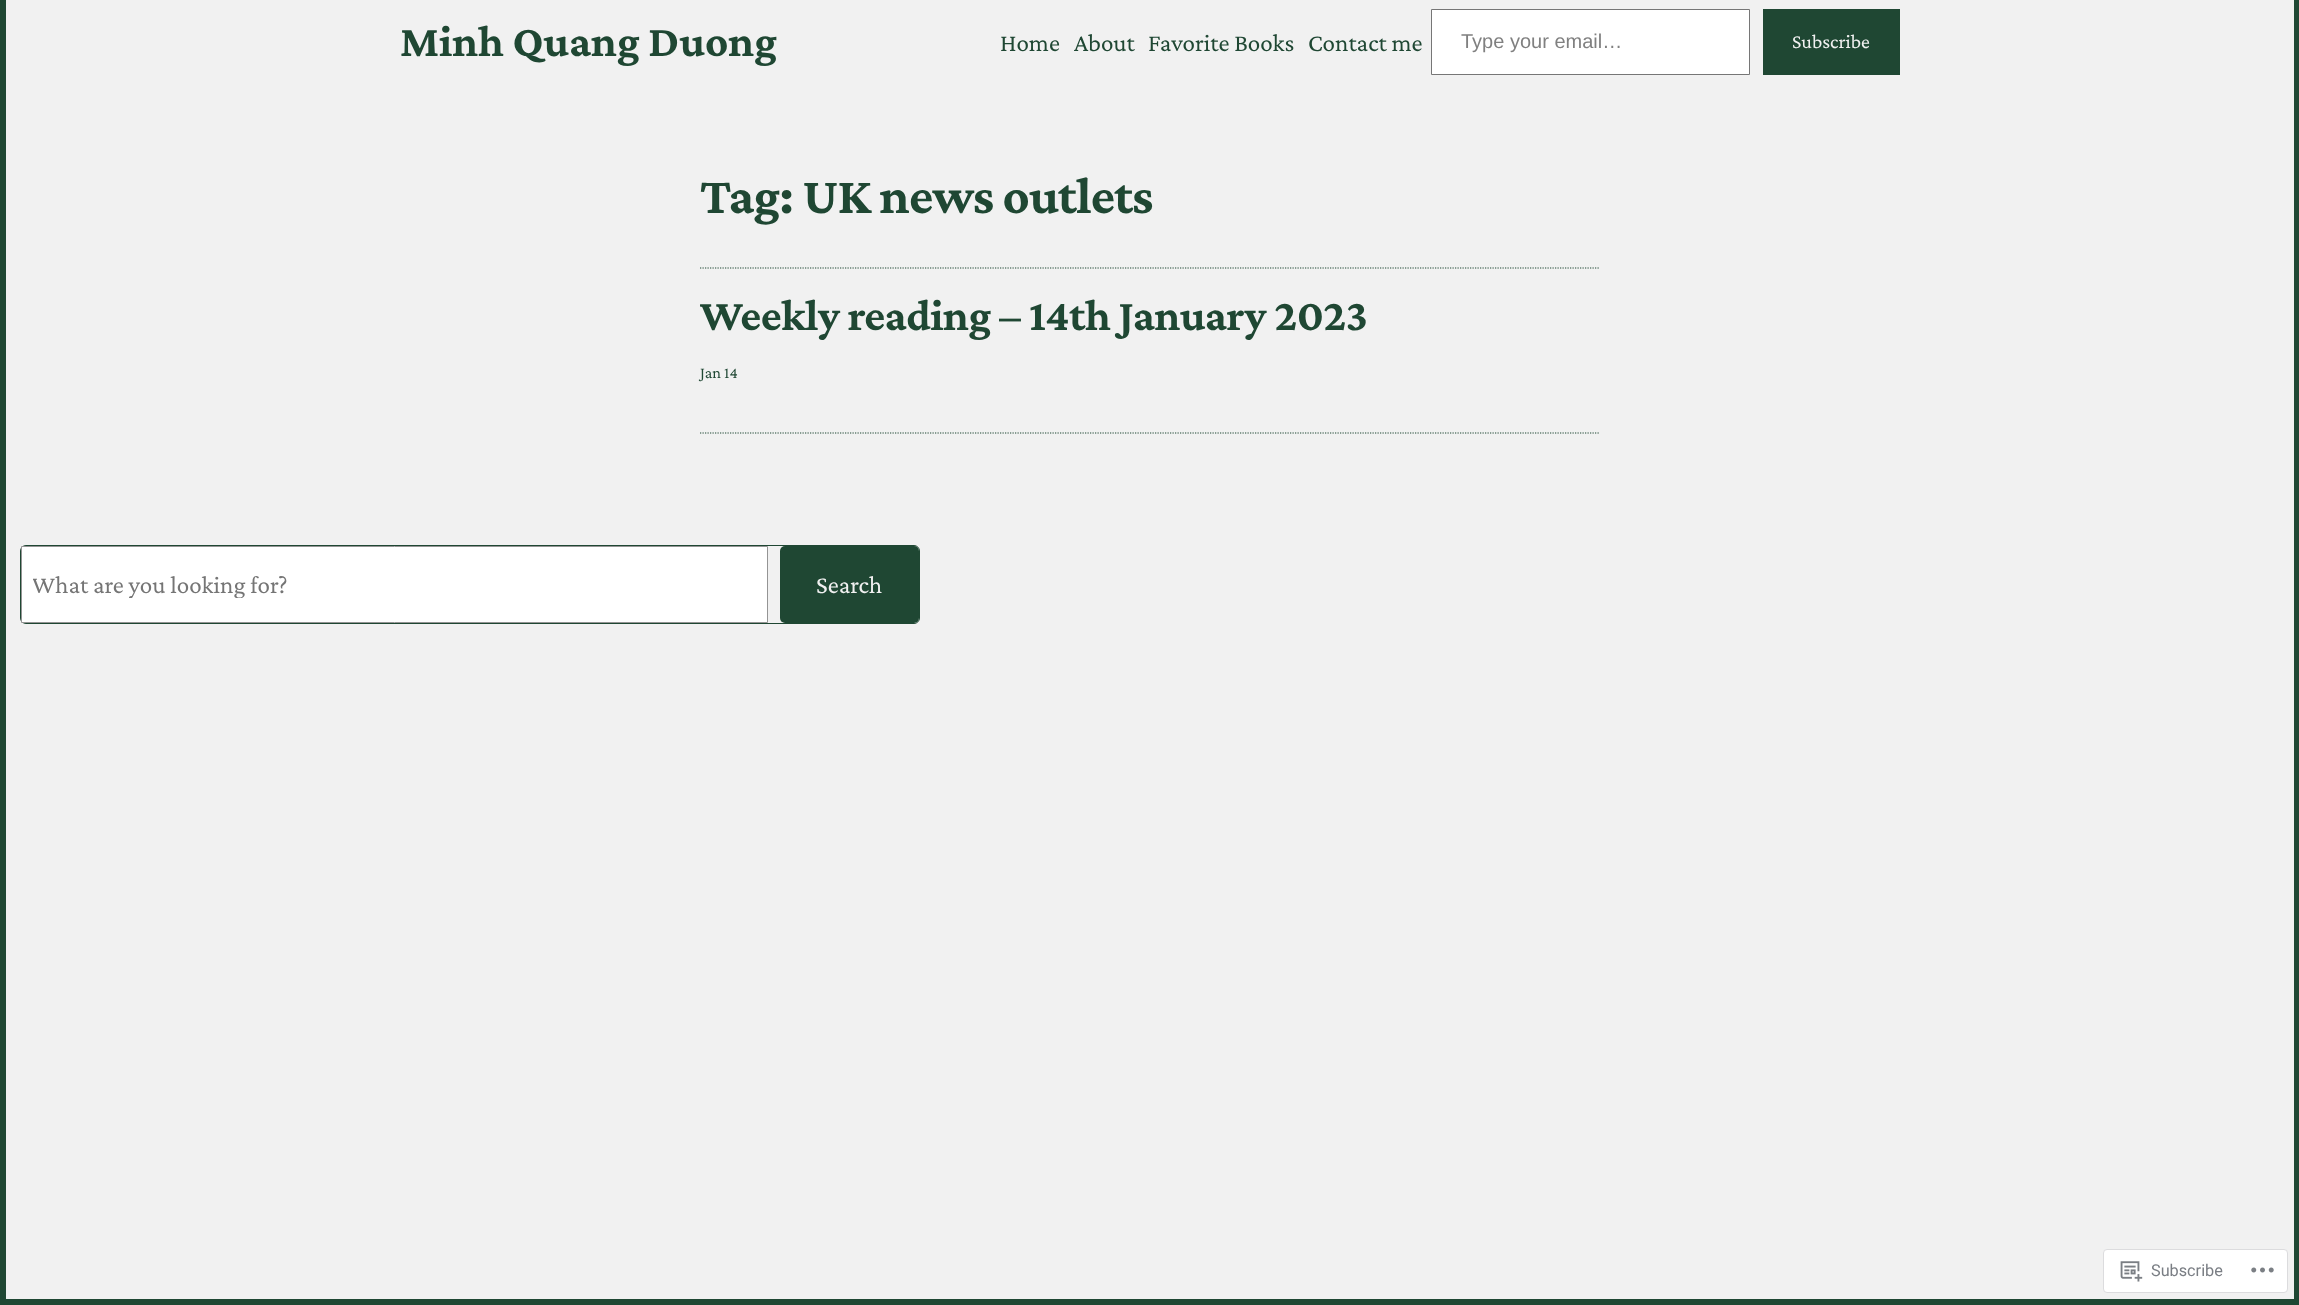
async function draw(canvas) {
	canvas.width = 2299;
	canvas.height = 1305;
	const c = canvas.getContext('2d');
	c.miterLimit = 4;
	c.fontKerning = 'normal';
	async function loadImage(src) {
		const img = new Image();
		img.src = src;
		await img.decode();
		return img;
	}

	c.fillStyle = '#f1f1f1';
	c.fillRect(0, 0, 2299, 1305);
	for (const [x, y, w, h, color] of [
		[2294, 0, 5, 1305, '#1f4733'],
		[0, 1299, 2299, 6, '#1f4733'],
		[0, 0, 6, 1305, '#1f4733'],
	]) {
		c.fillStyle = color;
		c.fillRect(x, y, w, h);
	}
	c.font = 'bold 45px Crimson Pro';
	c.fillText('Minh Quang Duong', 400, 56);
	c.font = '25px Crimson Pro';
	for (const [text, x, y] of [
		['Home', 1000, 51],
		['About', 1074, 51],
		['Favorite Books', 1148, 51],
		['Contact me', 1308, 51],
	]) {
		c.fillText(text, x, y);
	}
	c.fillStyle = '#fff';
	c.beginPath();
	c.rect(1431.5, 9.5, 318, 65);
	c.fill();
	c.strokeStyle = '#767676';
	c.stroke();
	c.font = '20px Liberation Sans';
	c.fillStyle = '#808080';
	c.fillText('Type your email…', 1461, 48);
	c.fillStyle = '#1f4733';
	c.fillRect(1763, 9, 137, 66);
	c.font = '20px Crimson Pro';
	c.fillStyle = '#f1f1f1';
	c.fillText('Subscribe', 1792, 48);
	c.letterSpacing = '-0.8px';
	c.font = 'bold 52.5px Crimson Pro';
	c.fillStyle = '#1f4733';
	c.fillText('Tag: UK news outlets', 700, 213);
	c.beginPath();
	c.moveTo(700, 268);
	c.lineTo(1600, 268);
	c.strokeStyle = '#1f4733';
	c.lineWidth = 1.2;
	c.setLineDash([1.25, 1.25]);
	c.stroke();
	c.letterSpacing = '-0.4px';
	c.font = 'bold 45px Crimson Pro';
	c.fillText('Weekly reading – 14th January 2023', 700, 330);
	c.letterSpacing = '0px';
	c.font = '16.25px Crimson Pro';
	c.fillText('Jan 14', 700, 378);
	c.beginPath();
	c.moveTo(700, 433);
	c.lineTo(1600, 433);
	c.stroke();
	c.beginPath();
	c.roundRect(20.5, 545.5, 899, 78, 5.5);
	c.lineWidth = 1;
	c.setLineDash([]);
	c.stroke();
	c.fillStyle = '#fff';
	c.beginPath();
	c.rect(21.5, 546.5, 746, 76);
	c.fill();
	c.strokeStyle = '#949494';
	c.stroke();
	c.save();
	c.beginPath();
	c.rect(33, 570, 701, 28);
	c.clip();
	c.font = '25px Crimson Pro';
	c.fillStyle = '#757575';
	c.fillText('What are you looking for?', 32, 593);
	c.restore();
	c.fillStyle = '#1f4733';
	c.beginPath();
	c.roundRect(780, 546, 139, 77, 5);
	c.fill();
	c.font = '25px Crimson Pro';
	c.fillStyle = '#f1f1f1';
	c.fillText('Search', 816, 593);
	c.fillStyle = '#fff';
	c.beginPath();
	c.roundRect(2103.5, 1249.5, 184, 43, 3.5);
	c.fill();
	c.strokeStyle = '#dcdcde';
	c.stroke();
	c.drawImage(await loadImage('img1.png'), 2120, 1261, 23, 21);
	c.font = '16.25px Roboto';
	c.fillStyle = '#7a7e84';
	c.fillText('Subscribe', 2151, 1276);
	c.drawImage(await loadImage('img2.png'), 2251, 1267, 23, 6);
}

draw(document.querySelector('canvas'));
